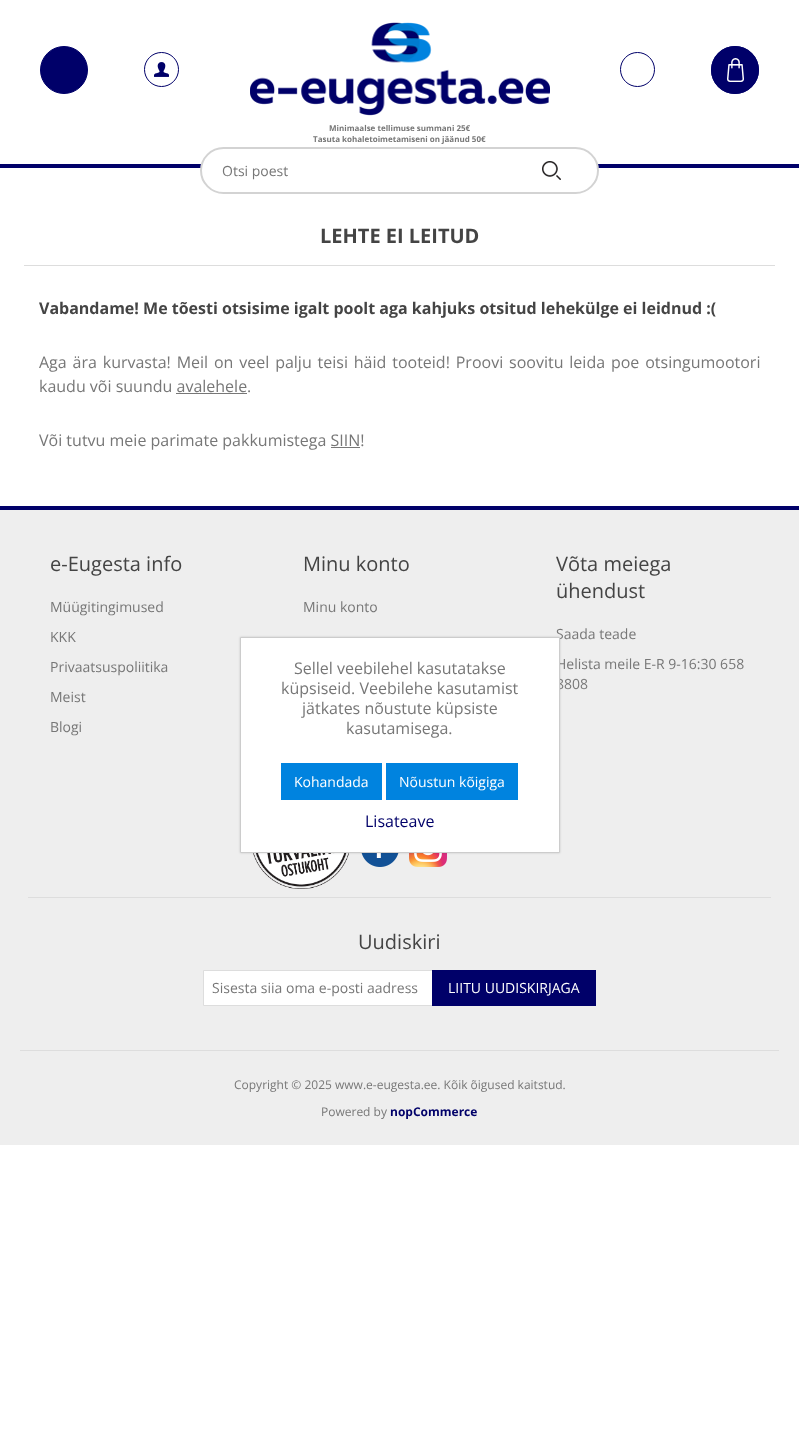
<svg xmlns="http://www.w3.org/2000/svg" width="799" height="1453">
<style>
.a{font:bold 8px Open Sans;fill:#777}
.b{font:14px Open Sans;fill:#777}
.c{font:bold 20px Open Sans;fill:#444}
.d{font:bold 16px Open Sans;fill:#444}
.e{font:16px Open Sans;fill:#777}
.f{font:20px Open Sans;fill:#444}
.g{font:14px Open Sans;fill:#fff}
.h{font:12px Open Sans;fill:#777}
.i{font:bold 12px Open Sans;fill:#000069}
.j{font:16px Open Sans;fill:#000069}
</style>
<rect width="100%" height="100%" fill="#fff"/>
<path fill="#000069" d="M0 164h799v4H0z"/>
<circle fill="#000069" stroke="#000069" cx="64" cy="70" r="23.5"/>
<image href="1.png" x="154" y="62" width="15" height="15"/>
<circle fill="none" stroke="#000069" cx="161.5" cy="69.5" r="17"/>
<circle fill="none" stroke="#000069" cx="637.5" cy="69.5" r="17"/>
<circle fill="#000069" cx="735" cy="70" r="24"/>
<image href="2.png" x="727" y="58" width="17" height="24"/>
<circle fill="none" stroke="#000069" cx="735" cy="70" r="23.5"/>
<image href="3.png" x="250" y="22" width="300" height="94"/>
<rect fill="#fff" stroke="#d3d3d3" stroke-width="2" x="201" y="148" width="397" height="45" rx="22.5"/>
<image href="4.png" x="542" y="161" width="19" height="19"/>
<path fill="#ddd" d="M24 265h751v1H24z"/>
<path fill="#777" d="M176 393h71v1H176z"/>
<path fill="#777" d="M331 447h29v1H331z"/>
<path fill="#eee" d="M0 510h799v635H0z"/>
<path fill="#000069" d="M0 506h799v4H0z"/>
<path fill="#ddd" d="M20 1050h759v1H20z"/>
<path fill="#ddd" d="M28 897h743v1H28z"/>
<image href="5.png" x="253" y="853" width="96" height="36"/>
<image href="6.png" x="361" y="853" width="38" height="14"/>
<image href="7.png" x="409" y="853" width="38" height="14"/>
<path fill="#fff" stroke="#ddd" d="M203.5 970.5h229v35H203.5z"/>
<path fill="#000069" d="M432 970h164v36H432z"/>
<path fill="#00000026" filter="blur(1px)" d="M240 637h320v216H240z"/>
<text class="a" x="329" y="131">Minimaalse tellimuse summani 25€</text>
<text class="a" x="313" y="142">Tasuta kohaletoimetamiseni on jäänud 50€</text>
<text class="b" x="222" y="176">Otsi poest</text>
<text class="c" x="320" y="243">LEHTE EI LEITUD</text>
<text class="d" x="39" y="314">Vabandame! Me tõesti otsisime igalt poolt aga kahjuks otsitud lehekülge ei leidnud :(</text>
<text class="e" x="39" y="368" word-spacing="1.7">Aga ära kurvasta! Meil on veel palju teisi häid tooteid! Proovi soovitu leida poe otsingumootori</text>
<text class="e" x="39" y="392">kaudu või suundu avalehele.</text>
<text class="e" x="39" y="446">Või tutvu meie parimate pakkumistega SIIN!</text>
<text class="f" x="50" y="571">e-Eugesta info</text>
<text class="b" x="50" y="612">Müügitingimused</text>
<text class="b" x="50" y="642">KKK</text>
<text class="b" x="50" y="672">Privaatsuspoliitika</text>
<text class="b" x="50" y="702">Meist</text>
<text class="b" x="50" y="732">Blogi</text>
<text class="f" x="303" y="571">Minu konto</text>
<text class="b" x="303" y="612">Minu konto</text>
<text class="f" x="556" y="571">Võta meiega</text>
<text class="f" x="556" y="598">ühendust</text>
<text class="b" x="556" y="639">Saada teade</text>
<text class="b" x="556" y="669">Helista meile E-R 9-16:30 658</text>
<text class="b" x="556" y="689">8808</text>
<text class="f" x="358" y="949">Uudiskiri</text>
<text class="b" x="212" y="993">Sisesta siia oma e-posti aadress</text>
<text class="g" x="448" y="993">LIITU UUDISKIRJAGA</text>
<text class="h" x="234" y="1089">Copyright © 2025 www.e-eugesta.ee. Kõik õigused kaitstud.</text>
<text class="h" x="321" y="1116">Powered by</text>
<text class="i" x="390" y="1116">nopCommerce</text>
<path fill="#fff" stroke="#ccc" d="M240.5 637.5h319v215H240.5z"/>
<text class="e" x="294" y="674">Sellel veebilehel kasutatakse</text>
<text class="e" x="281" y="694">küpsiseid. Veebilehe kasutamist</text>
<text class="e" x="302" y="714">jätkates nõustute küpsiste</text>
<text class="e" x="346" y="734">kasutamisega.</text>
<path fill="#0083df" d="M281 763h101v37H281z"/>
<text class="g" x="294" y="787">Kohandada</text>
<path fill="#0083df" d="M386 763h132v37H386z"/>
<text class="g" x="399" y="787">Nõustun kõigiga</text>
<text class="j" x="365" y="827">Lisateave</text>
</svg>
